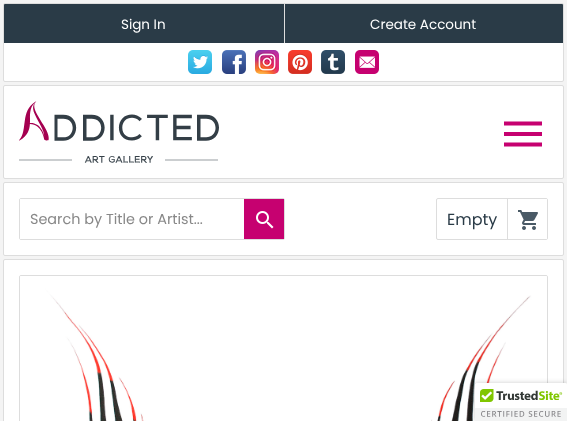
<svg xmlns="http://www.w3.org/2000/svg" width="567" height="421">
<style>
.a{font:13.5px Poppins;fill:#fff}
.b{font:14.4px Poppins;fill:#888}
.c{font:16px Poppins;fill:#2a3b47}
</style>
<rect width="100%" height="100%" fill="#f4f4f4"/>
<rect fill="#fff" stroke="#ddd" x="3.5" y="3.5" width="560" height="78" rx="1.5"/>
<path fill="#2a3b47" d="M5 4h279v39h-280v-38c0-.5 .5-1 1-1z"/>
<path fill="#2a3b47" d="M284 4h278c.5 0 1 .5 1 1v38h-279z"/>
<path fill="#ddd" d="M284 4h1v39H284z"/>
<image href="1.png" x="188" y="50" width="24" height="24"/>
<image href="2.png" x="222" y="50" width="24" height="24"/>
<image href="3.png" x="255" y="50" width="24" height="24"/>
<image href="4.png" x="288" y="50" width="24" height="24"/>
<image href="5.png" x="321" y="50" width="24" height="24"/>
<image href="6.png" x="355" y="50" width="24" height="24"/>
<rect fill="#fff" stroke="#ddd" x="3.5" y="85.5" width="560" height="93" rx="1.5"/>
<image href="7.png" x="19" y="101" width="200" height="62"/>
<path fill="#c60170" d="M504 121.5h38v4h-38zm0 14.5v-4h38v4zm0 10.5v-4h38v4z"/>
<rect fill="#fff" stroke="#ddd" x="3.5" y="182.5" width="560" height="73" rx="1.5"/>
<rect fill="none" stroke="#ddd" x="19.5" y="198.5" width="265" height="41" rx="1.5"/>
<path fill="#fff" d="M20 199h1v40H20z"/>
<path fill="#c60170" d="M244 199h40v40H244z"/>
<image href="8.png" x="256" y="211" width="18" height="18"/>
<rect fill="none" stroke="#ddd" x="436.5" y="198.5" width="111" height="41" rx="1.5"/>
<path fill="#fff" d="M546 199h1v40H546z"/>
<path fill="#ddd" d="M507 199h1v40H507z"/>
<image href="9.png" x="518" y="210" width="20" height="20"/>
<rect fill="#fff" stroke="#ddd" x="3.5" y="259.5" width="560" height="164" rx="1.5"/>
<rect fill="none" stroke="#ddd" x="19.5" y="275.5" width="528" height="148" rx="1.5"/>
<image href="10.png" x="20" y="276" width="527" height="145"/>
<rect fill="#00000033" filter="blur(2.5px)" x="475" y="383" width="92" height="38" rx="2"/>
<path fill="#fff" d="M477 383h90v38h-92v-36c0-1 1-2 2-2z"/>
<image href="11.png" x="475" y="383" width="92" height="38"/>
<text class="a" x="121" y="29">Sign In</text>
<text class="a" x="370" y="29">Create Account</text>
<text class="b" x="30" y="224">Search by Title or Artist...</text>
<text class="c" x="447" y="225">Empty</text>
</svg>
